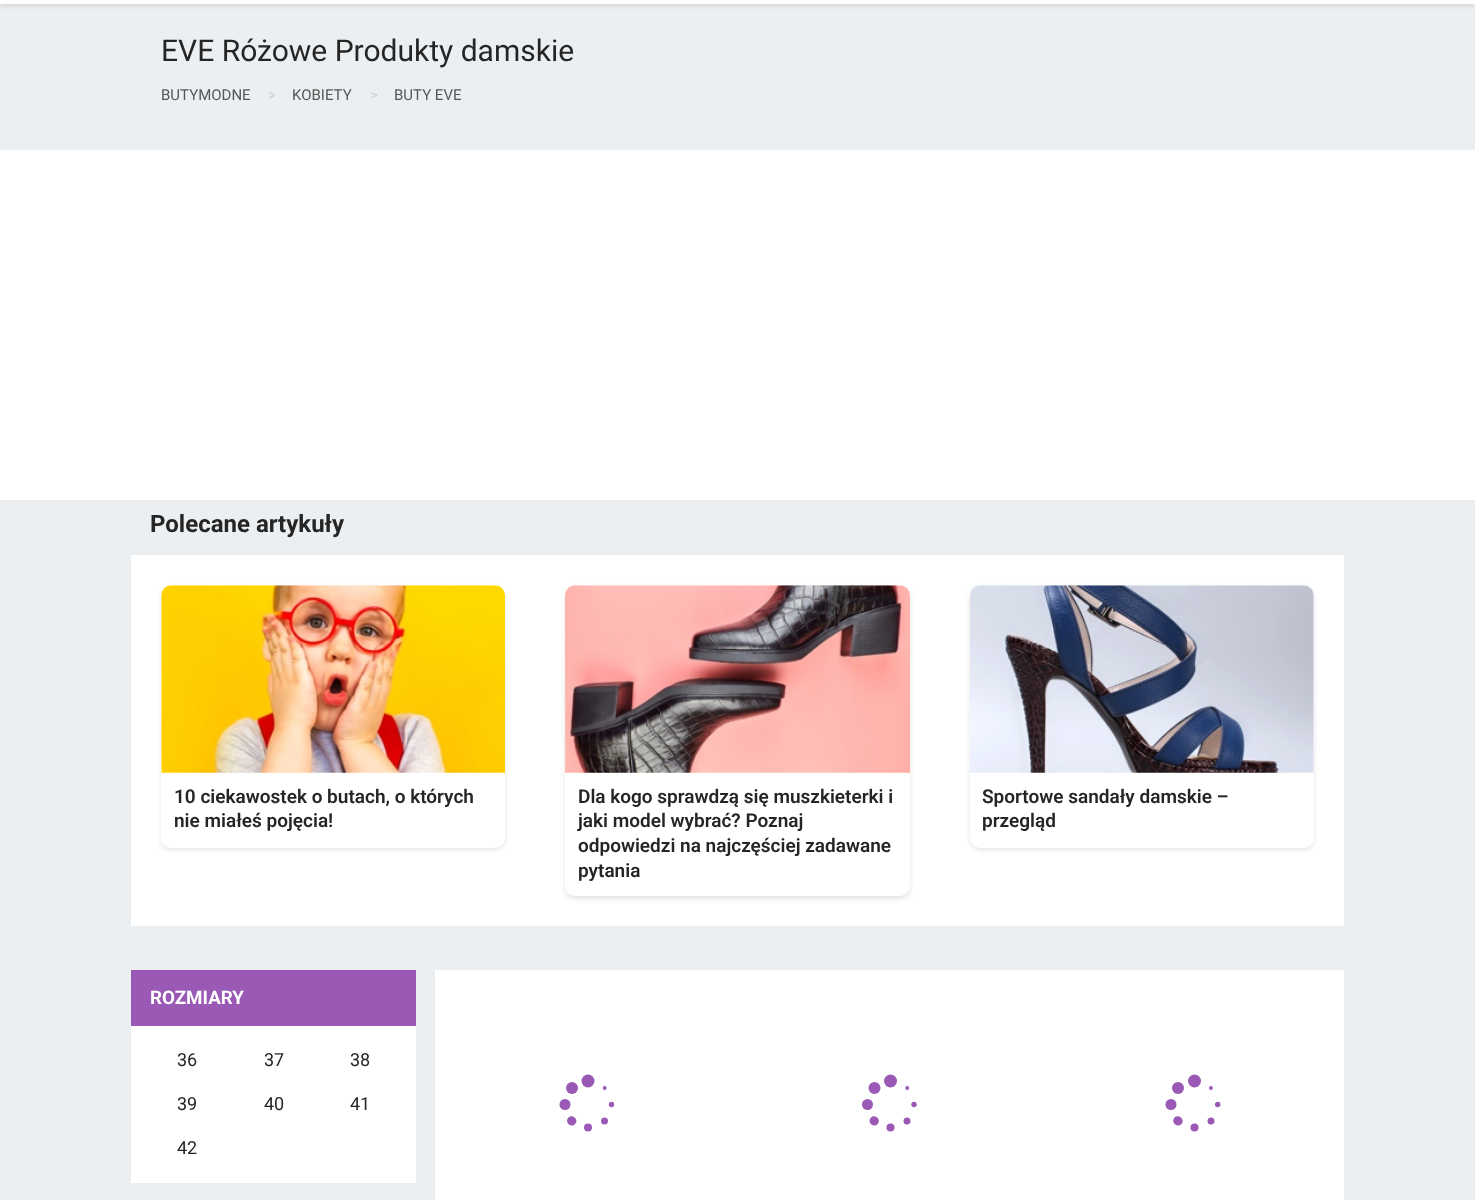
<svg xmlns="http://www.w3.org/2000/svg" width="1475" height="1200">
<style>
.a{font:30px Roboto;fill:#252525}
.b{font:15px Roboto;fill:#565656}
.c{font:15px Roboto;fill:#ccc}
.d{font:bold 24px Roboto;fill:#252525}
.e{font:600 19px Roboto;fill:#252525}
.f{font:bold 18.75px Roboto;fill:#fff}
.g{font:18px Roboto;fill:#252525}
</style>
<rect width="100%" height="100%" fill="#fff"/>
<path fill="#eceff1" d="M0 4h1475v146H0z"/>
<path fill="#0000001a" filter="blur(2.5px)" d="M0 -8h1475v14H0z"/>
<path fill="#fff" d="M0 0h1475v4H0z"/>
<path fill="#eceff1" d="M0 500h1475v700H0z"/>
<path fill="#fff" d="M131 555h1213v371H131z"/>
<rect fill="#0000001a" filter="blur(2.5px)" x="161" y="588" width="344" height="262" rx="10"/>
<rect fill="#fff" x="161" y="585" width="344" height="263" rx="10"/>
<image href="1.png" x="161" y="585" width="344" height="188"/>
<rect fill="#0000001a" filter="blur(2.5px)" x="565" y="588" width="345" height="311" rx="10"/>
<rect fill="#fff" x="565" y="585" width="345" height="311" rx="10"/>
<image href="2.png" x="565" y="585" width="345" height="188"/>
<rect fill="#0000001a" filter="blur(2.5px)" x="970" y="588" width="344" height="262" rx="10"/>
<rect fill="#fff" x="970" y="585" width="344" height="263" rx="10"/>
<image href="3.png" x="970" y="585" width="344" height="188"/>
<path fill="#fff" d="M131 1026h285v157H131z"/>
<path fill="#9b59b6" d="M131 970h285v56H131z"/>
<path fill="#fff" d="M435 970h909v230H435z"/>
<circle fill="#9b59b6" cx="572" cy="1088" r="6"/>
<circle fill="#9b59b6" cx="588" cy="1081" r="6.5"/>
<circle fill="#9b59b6" cx="604.7" cy="1088" r="2"/>
<circle fill="#9b59b6" cx="565" cy="1104.5" r="5.5"/>
<circle fill="#9b59b6" cx="611.5" cy="1104.5" r="2.7"/>
<path fill="#9b59b6" d="M568.5 1117.5c-4.5 4.5 2.5 11 6.5 6.5c4.5-4-2.5-10.5-6.5-6.5z"/>
<circle fill="#9b59b6" cx="604.5" cy="1121" r="3.5"/>
<circle fill="#9b59b6" cx="588" cy="1127.5" r="4"/>
<circle fill="#9b59b6" cx="874.5" cy="1088" r="6"/>
<circle fill="#9b59b6" cx="890.5" cy="1081" r="6.5"/>
<circle fill="#9b59b6" cx="907.2" cy="1088" r="2"/>
<circle fill="#9b59b6" cx="867.5" cy="1104.5" r="5.5"/>
<circle fill="#9b59b6" cx="914" cy="1104.5" r="2.7"/>
<path fill="#9b59b6" d="M871 1117.5c-4.5 4.5 2.5 11 6.5 6.5c4.5-4-2.5-10.5-6.5-6.5z"/>
<circle fill="#9b59b6" cx="907" cy="1121" r="3.5"/>
<circle fill="#9b59b6" cx="890.5" cy="1127.5" r="4"/>
<circle fill="#9b59b6" cx="1178" cy="1088" r="6"/>
<circle fill="#9b59b6" cx="1194.5" cy="1081" r="6.5"/>
<circle fill="#9b59b6" cx="1210.9" cy="1088" r="2"/>
<circle fill="#9b59b6" cx="1171" cy="1104.5" r="5.5"/>
<circle fill="#9b59b6" cx="1217.7" cy="1104.5" r="2.7"/>
<path fill="#9b59b6" d="M1174.5 1117.5c-4 4.5 2.5 11 7 6.5c4-4-2.5-10.5-7-6.5z"/>
<circle fill="#9b59b6" cx="1211" cy="1121" r="3.5"/>
<circle fill="#9b59b6" cx="1194.5" cy="1127.5" r="4"/>
<text class="a" x="161" y="61">EVE Różowe Produkty damskie</text>
<text class="b" x="161" y="100">BUTYMODNE</text>
<text class="c" x="268" y="100">&gt;</text>
<text class="b" x="292" y="100">KOBIETY</text>
<text class="c" x="370" y="100">&gt;</text>
<text class="b" x="394" y="100">BUTY EVE</text>
<text class="d" x="150" y="532">Polecane artykuły</text>
<text class="e" x="174" y="803">10 ciekawostek o butach, o których</text>
<text class="e" x="174" y="827">nie miałeś pojęcia!</text>
<text class="e" x="578" y="803">Dla kogo sprawdzą się muszkieterki i</text>
<text class="e" x="578" y="827">jaki model wybrać? Poznaj</text>
<text class="e" x="578" y="852">odpowiedzi na najczęściej zadawane</text>
<text class="e" x="578" y="877">pytania</text>
<text class="e" x="982" y="803">Sportowe sandały damskie –</text>
<text class="e" x="982" y="827">przegląd</text>
<text class="f" x="150" y="1004">ROZMIARY</text>
<text class="g" x="177" y="1066">36</text>
<text class="g" x="264" y="1066">37</text>
<text class="g" x="350" y="1066">38</text>
<text class="g" x="177" y="1110">39</text>
<text class="g" x="264" y="1110">40</text>
<text class="g" x="350" y="1110">41</text>
<text class="g" x="177" y="1154">42</text>
</svg>
